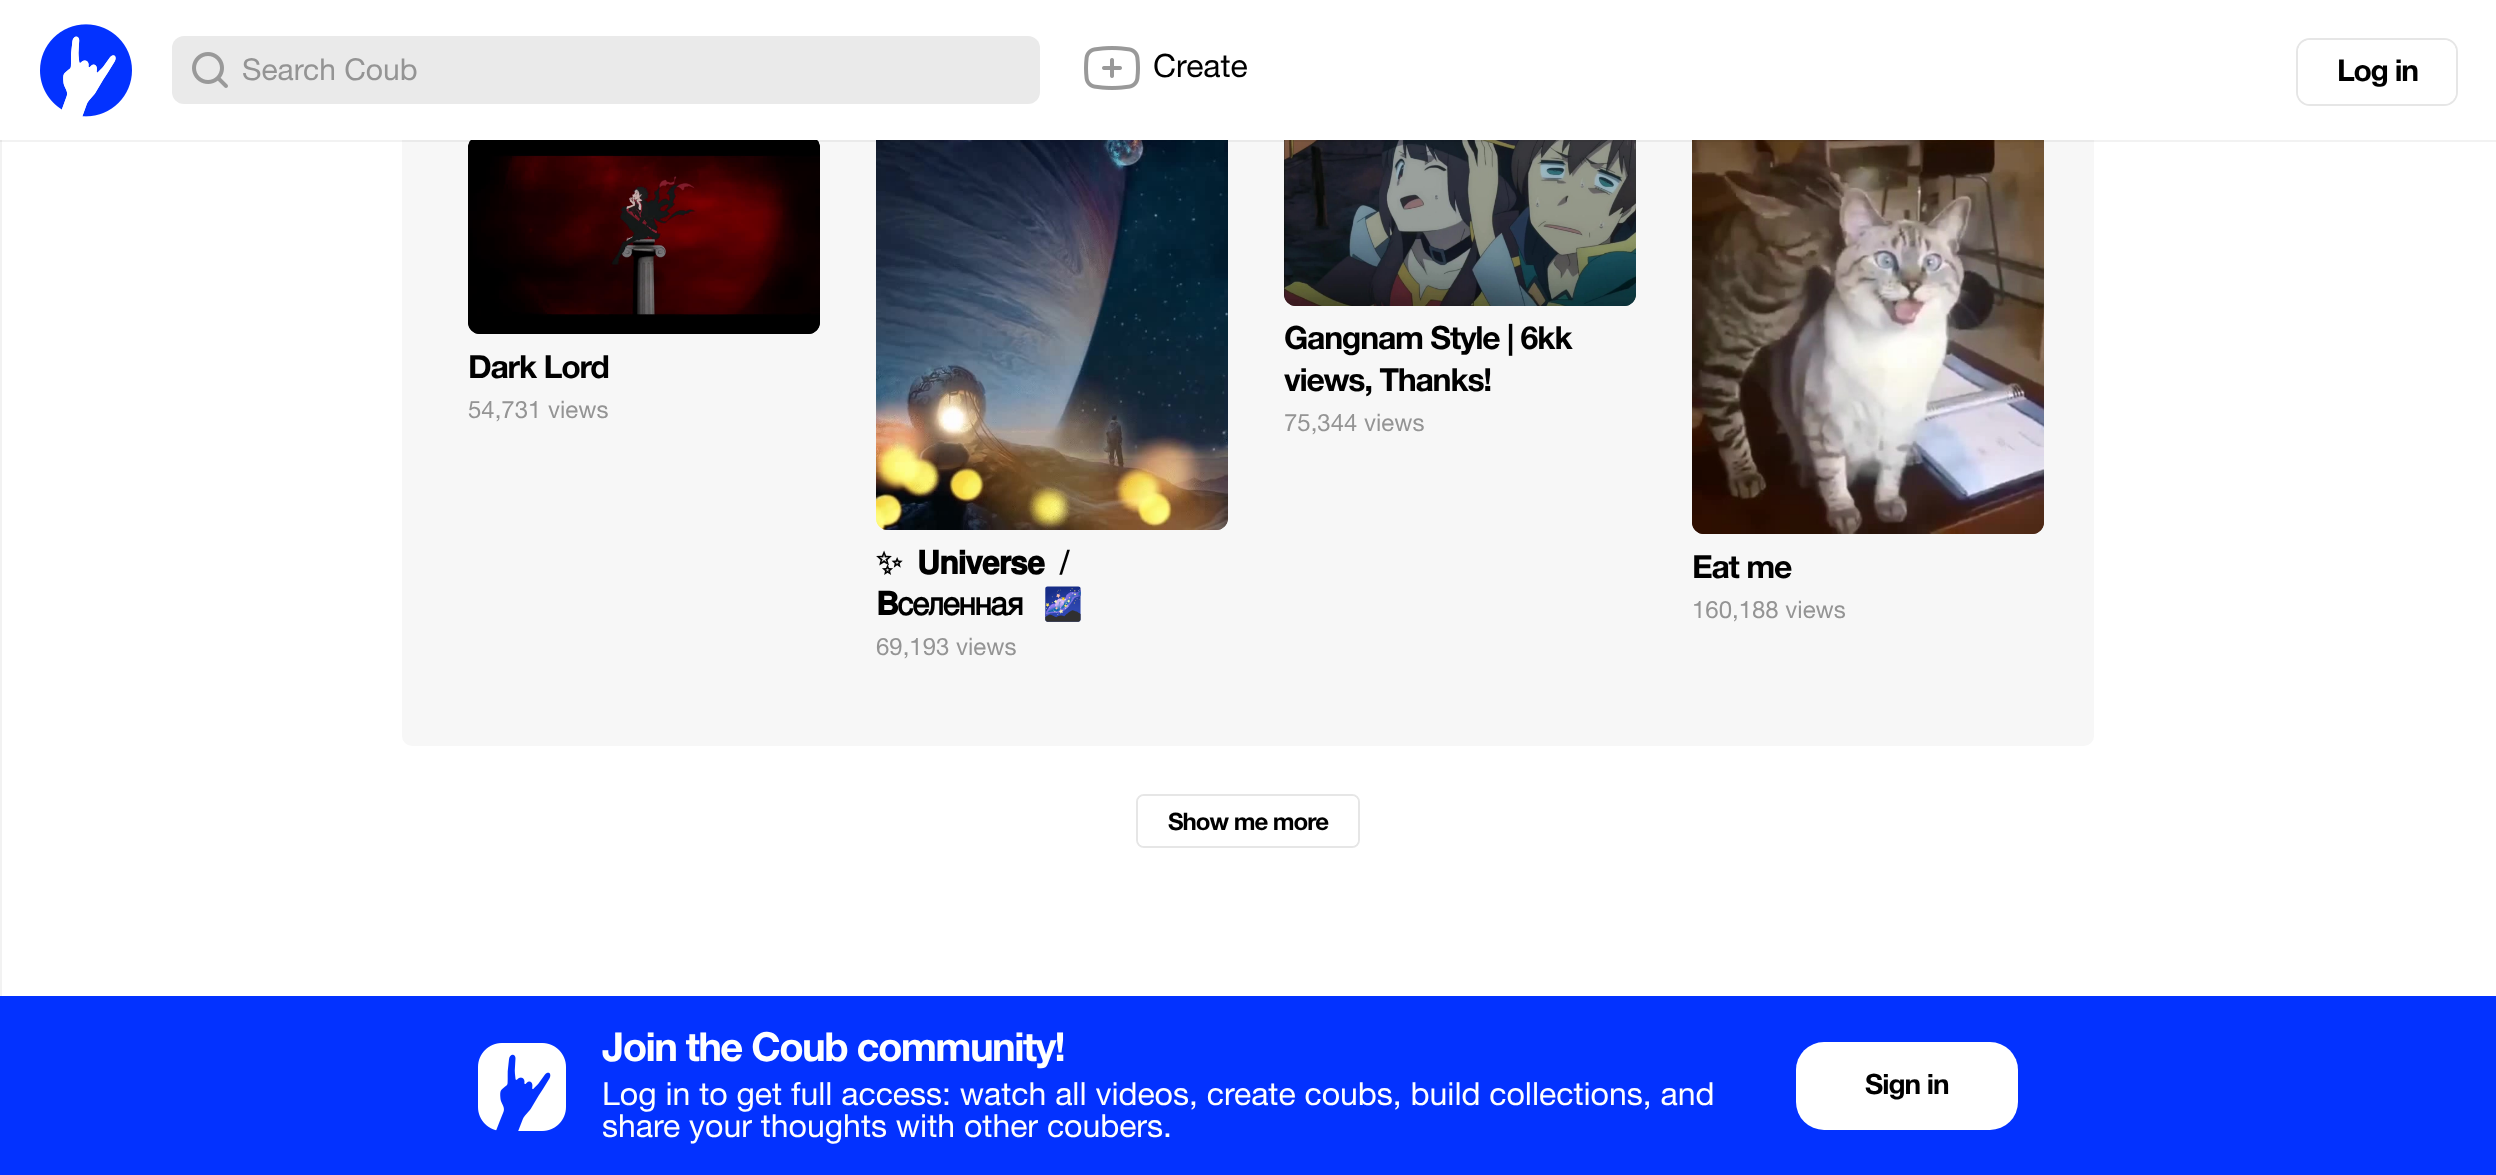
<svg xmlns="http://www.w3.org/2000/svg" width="2496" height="1175">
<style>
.a{font:30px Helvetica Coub;fill:#949494}
.b{font:32px Helvetica Coub;fill:#000}
.c{font:bold 30px Helvetica Coub;letter-spacing:-1.25px;fill:#000}
.d{font:bold 32px Helvetica Coub;letter-spacing:-1.25px;fill:#000}
.e{font:24px Helvetica Coub;fill:#949494}
.f{font:bold 32px FreeSans;letter-spacing:-1.25px;fill:#000}
.g{font:bold 32px Noto Color Emoji;letter-spacing:-1.25px;fill:#000}
.h{font:bold 24px Helvetica Coub;letter-spacing:-1px;fill:#000}
.i{font:bold 40px Helvetica Coub;letter-spacing:-1.6px;fill:#fff}
.j{font:32px Helvetica Coub;fill:#fff}
.k{font:bold 28px Helvetica Coub;letter-spacing:-1px;fill:#000}
</style>
<rect width="100%" height="100%" fill="#fff"/>
<path fill="none" stroke="#f2f2f2" stroke-width="2" d="M-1 -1h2v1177H-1z"/>
<rect fill="#f7f7f7" x="402" y="-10" width="1692" height="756" rx="10"/>
<image href="4.png" x="468" y="140" width="352" height="194"/>
<image href="5.png" x="468" y="140" width="352" height="194"/>
<image href="7.png" x="1284" y="294" width="352" height="12"/>
<image href="6.png" x="1284" y="140" width="352" height="166"/>
<image href="9.png" x="876" y="518" width="352" height="12"/>
<image href="8.png" x="876" y="140" width="352" height="390"/>
<image href="11.png" x="1692" y="522" width="352" height="12"/>
<image href="10.png" x="1692" y="140" width="352" height="394"/>
<path fill="#0000000d" d="M0 140h2496v2H0z"/>
<path fill="#fff" d="M0 0h2094v140H0z"/>
<image href="1.png" x="40" y="24" width="92" height="93"/>
<rect fill="#eaeaea" x="172" y="36" width="868" height="68" rx="12"/>
<image href="2.png" x="192" y="52" width="36" height="36"/>
<image href="3.png" x="1084" y="46" width="56" height="44"/>
<rect fill="none" stroke="#e6e6e6" stroke-width="2" x="2297" y="39" width="160" height="66" rx="13"/>
<rect fill="#fff" x="2298" y="40" width="158" height="64" rx="12"/>
<rect fill="none" stroke="#e6e6e6" stroke-width="2" x="1137" y="795" width="222" height="52" rx="7"/>
<rect fill="#fff" x="1138" y="796" width="220" height="50" rx="6"/>
<path fill="#0332ff" d="M0 996h2496v179H0z"/>
<image href="12.png" x="478" y="1043" width="88" height="88"/>
<rect fill="#fff" x="1796" y="1042" width="222" height="88" rx="28"/>
<text class="a" x="242" y="80">Search Coub</text>
<text class="b" x="1153" y="77">Create</text>
<text class="c" x="2337" y="81">Log in</text>
<text class="d" x="468" y="378">Dark Lord</text>
<text class="e" x="468" y="418">54,731 views</text>
<text class="d" x="1284" y="349">Gangnam Style | 6kk</text>
<text class="d" x="1284" y="391">views, Thanks!</text>
<text class="e" x="1284" y="431">75,344 views</text>
<text class="f" x="876" y="574" word-spacing="9">✨ 𝐔𝐧𝐢𝐯𝐞𝐫𝐬𝐞 /</text>
<text class="f" x="876" y="615">𝐁селенная</text>
<text class="g" x="1043" y="615">🌌</text>
<text class="e" x="876" y="655">69,193 views</text>
<text class="d" x="1692" y="578">Eat me</text>
<text class="e" x="1692" y="618">160,188 views</text>
<text class="h" x="1168" y="830">Show me more</text>
<text class="i" x="602" y="1061">Join the Coub community!</text>
<text class="j" x="602" y="1105">Log in to get full access: watch all videos, create coubs, build collections, and</text>
<text class="j" x="602" y="1137">share your thoughts with other coubers.</text>
<text class="k" x="1865" y="1094">Sign in</text>
</svg>
